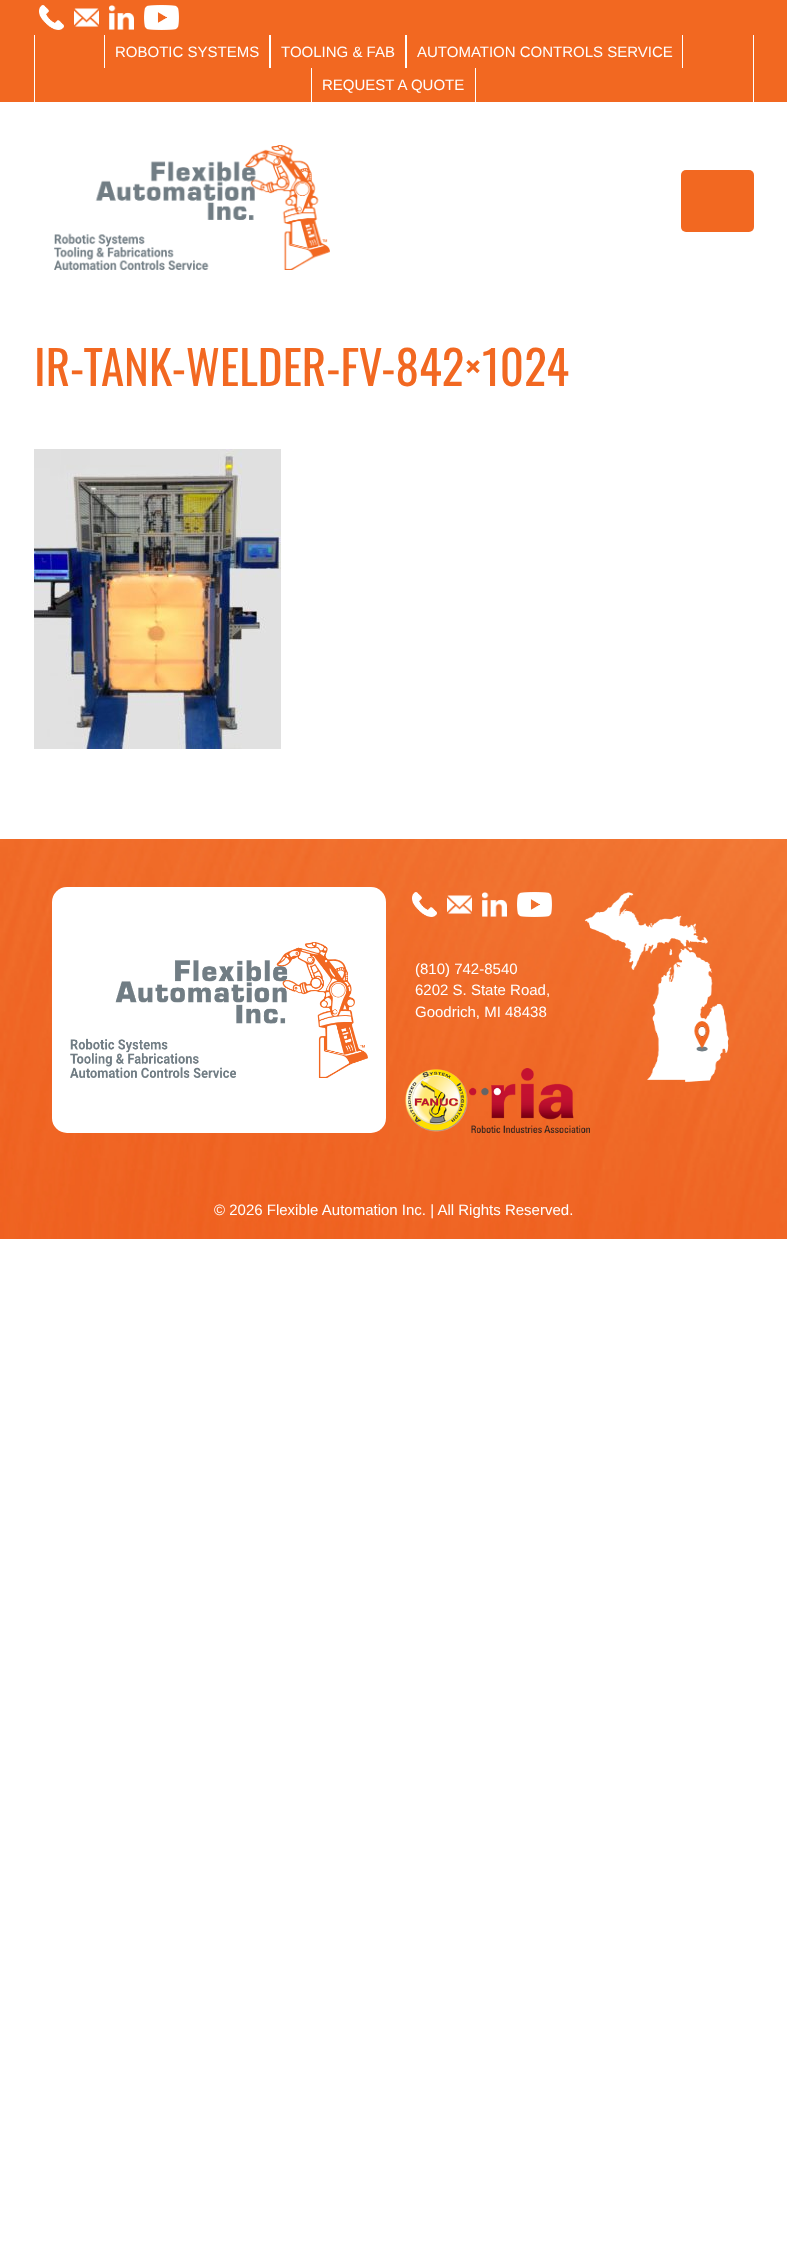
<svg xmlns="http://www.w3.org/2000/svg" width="787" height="2250">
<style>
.a{font:15px Liberation Sans;fill:#fff}
.b{font:47px Oswald;fill:#f26821}
</style>
<rect width="100%" height="100%" fill="#fff"/>
<path fill="#f26821" d="M0 0h787v102H0z"/>
<image href="1.png" x="39" y="5" width="25" height="25"/>
<image href="2.png" x="74" y="8" width="25" height="19"/>
<image href="3.png" x="109" y="5" width="25" height="25"/>
<image href="4.png" x="144" y="5" width="35" height="25"/>
<path fill="#fff" d="M753 35h1v67H753z"/>
<path fill="#fff" d="M34 35h1v67H34z"/>
<path fill="#fff" d="M269 35h2v33H269z"/>
<path fill="#fff" d="M104 35h1v33H104z"/>
<path fill="#fff" d="M405 35h2v33H405z"/>
<path fill="#fff" d="M682 35h1v33H682z"/>
<path fill="#fff" d="M475 68h1v34H475z"/>
<path fill="#fff" d="M311 68h1v34H311z"/>
<image href="5.png" x="54" y="145" width="276" height="125"/>
<rect fill="#f26821" x="681" y="170" width="73" height="62" rx="5"/>
<image href="6.png" x="34" y="449" width="247" height="300"/>
<image href="7.png" x="0" y="839" width="787" height="400"/>
<rect fill="#fff" x="52" y="887" width="334" height="246" rx="15"/>
<image href="8.png" x="70" y="942" width="298" height="136"/>
<image href="9.png" x="412" y="892" width="25" height="25"/>
<image href="10.png" x="447" y="895" width="25" height="19"/>
<image href="11.png" x="482" y="892" width="25" height="25"/>
<image href="12.png" x="517" y="892" width="35" height="25"/>
<image href="13.png" x="405" y="1069" width="63" height="63"/>
<image href="14.png" x="469" y="1068" width="121" height="65"/>
<image href="15.png" x="584" y="892" width="145" height="191"/>
<text class="a" x="115" y="57">ROBOTIC SYSTEMS</text>
<text class="a" x="281" y="57">TOOLING &amp; FAB</text>
<text class="a" x="417" y="57">AUTOMATION CONTROLS SERVICE</text>
<text class="a" x="322" y="90">REQUEST A QUOTE</text>
<text class="b" x="34" y="386">IR-TANK-WELDER-FV-842×1024</text>
<text class="a" x="415" y="974">(810) 742-8540</text>
<text class="a" x="415" y="995">6202 S. State Road,</text>
<text class="a" x="415" y="1017">Goodrich, MI 48438</text>
<text class="a" x="214" y="1215">© 2026 Flexible Automation Inc. | All Rights Reserved.</text>
</svg>
